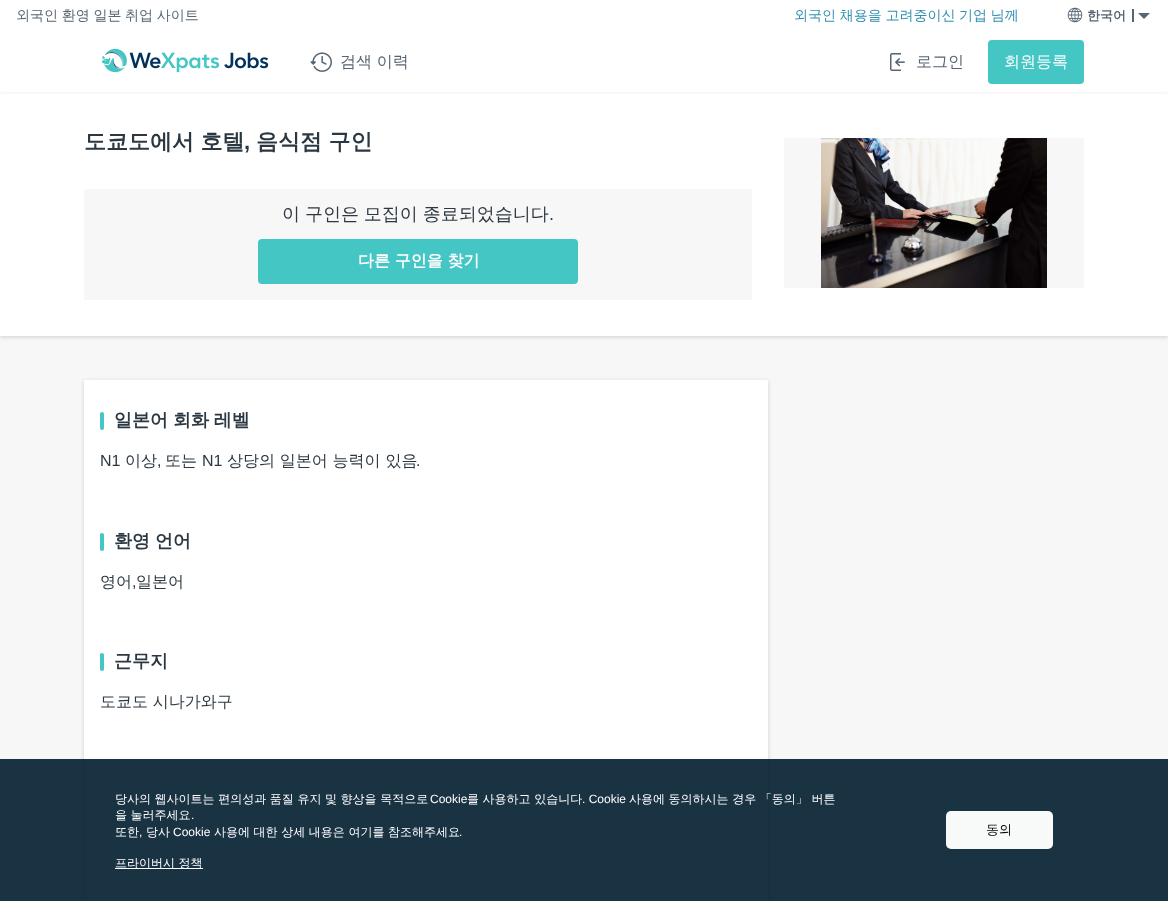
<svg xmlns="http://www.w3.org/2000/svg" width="1168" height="901">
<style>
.a{font:500 14px WenQuanYi Zen Hei;fill:#576573}
.b{font:500 14px WenQuanYi Zen Hei;fill:#318fb0}
.c{font:bold 13px WenQuanYi Zen Hei;fill:#576573}
.d{font:500 16px WenQuanYi Zen Hei;fill:#576573}
.e{font:500 16px WenQuanYi Zen Hei;fill:#fff}
.f{font:bold 22px WenQuanYi Zen Hei;fill:#2c3841}
.g{font:bold 22px Liberation Sans;fill:#2c3841}
.h{font:500 18px WenQuanYi Zen Hei;fill:#2c3841}
.i{font:18px Liberation Sans;fill:#2c3841}
.j{font:bold 16px WenQuanYi Zen Hei;fill:#fff}
.k{font:bold 18px WenQuanYi Zen Hei;fill:#2c3841}
.l{font:16px Liberation Sans;fill:#2c3841}
.m{font:500 16px WenQuanYi Zen Hei;fill:#2c3841}
.n{font:500 12px WenQuanYi Zen Hei;fill:#fff}
.o{font:12px Liberation Sans;fill:#fff}
.p{font:500 13px WenQuanYi Zen Hei;fill:#000}
</style>
<rect width="100%" height="100%" fill="#fff"/>
<image href="1.png" x="1067" y="7" width="16" height="16"/>
<path fill="#576573" d="M1132 9h2v13H1132z"/>
<path fill="#576573" d="M1138 13h12l-6 6z"/>
<image href="2.png" x="101" y="48" width="168" height="25"/>
<image href="3.png" x="310" y="52" width="22" height="20"/>
<image href="4.png" x="890" y="53" width="15" height="18"/>
<rect fill="#44c6c5" x="988" y="40" width="96" height="44" rx="4"/>
<path fill="#f7f7f7" d="M0 336h1168v565H0z"/>
<path fill="#00000029" filter="blur(2px)" d="M0 95h1168v242H0z"/>
<path fill="#fff" d="M0 94h1168v242H0z"/>
<path fill="#f7f7f7" d="M84 189h668v111H84z"/>
<rect fill="#44c6c5" x="258" y="239" width="320" height="45" rx="4"/>
<path fill="#f7f7f7" d="M784 138h300v150H784z"/>
<image href="5.png" x="821" y="138" width="226" height="150"/>
<path fill="#00000029" filter="blur(2px)" d="M84 381h684v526H84z"/>
<path fill="#fff" d="M84 380h684v521H84z"/>
<rect fill="#44c6c5" x="100" y="412" width="4" height="18" rx="2"/>
<rect fill="#44c6c5" x="100" y="533" width="4" height="18" rx="2"/>
<rect fill="#44c6c5" x="100" y="653" width="4" height="18" rx="2"/>
<path fill="#072233eb" d="M0 759h1168v142H0z"/>
<path fill="#fff" d="M115 868h88v1H115z"/>
<rect fill="#f8f9f9" x="946" y="811" width="107" height="38" rx="5"/>
<text class="a" x="16" y="20" word-spacing="-0.5">외국인 환영 일본 취업 사이트</text>
<text class="b" x="794" y="20" word-spacing="-0.5">외국인 채용을 고려중이신 기업 님께</text>
<text class="c" x="1087" y="20">한국어</text>
<text class="d" x="340" y="67">검색 이력</text>
<text class="d" x="916" y="67">로그인</text>
<text class="e" x="1004" y="67">회원등록</text>
<text class="f" x="84" y="149">도쿄도에서 호텔</text>
<text class="g" x="244" y="149">,</text>
<text class="f" x="256" y="149">음식점 구인</text>
<text class="h" x="282" y="220" word-spacing="-0.5">이 구인은 모집이 종료되었습니다</text>
<text class="i" x="549" y="220">.</text>
<text class="j" x="358" y="266">다른 구인을 찾기</text>
<text class="k" x="114" y="426" word-spacing="-0.5">일본어 회화 레벨</text>
<text class="l" x="100" y="466">N1</text>
<text class="m" x="125" y="466">이상</text>
<text class="m" x="165" y="466">또는</text>
<text class="l" x="202" y="466">N1</text>
<text class="m" x="227" y="466">상당의 일본어 능력이 있음</text>
<text class="l" x="157" y="466">,</text>
<text class="l" x="416" y="466">.</text>
<text class="k" x="114" y="547" word-spacing="-0.5">환영 언어</text>
<text class="m" x="100" y="587">영어</text>
<text class="l" x="132" y="587">,</text>
<text class="m" x="136" y="587">일본어</text>
<text class="k" x="114" y="667">근무지</text>
<text class="m" x="100" y="707">도쿄도 시나가와구</text>
<text class="n" x="115" y="803">당사의 웹사이트는 편의성과 품질 유지 및 향상을 목적으로</text>
<text class="o" x="430" y="803">Cookie</text>
<text class="n" x="467" y="803">를 사용하고 있습니다</text>
<text class="o" x="582" y="803">. Cookie</text>
<text class="n" x="629" y="803">사용에 동의하시는 경우 「동의」 버튼</text>
<text class="n" x="115" y="819">을 눌러주세요</text>
<text class="o" x="191" y="819">.</text>
<text class="n" x="115" y="836">또한</text>
<text class="o" x="139" y="836">,</text>
<text class="n" x="146" y="836">당사</text>
<text class="o" x="173" y="836">Cookie</text>
<text class="n" x="214" y="836">사용에 대한 상세 내용은 여기를 참조해주세요</text>
<text class="o" x="459" y="836">.</text>
<text class="n" x="115" y="867">프라이버시 정책</text>
<text class="p" x="986" y="834">동의</text>
</svg>
